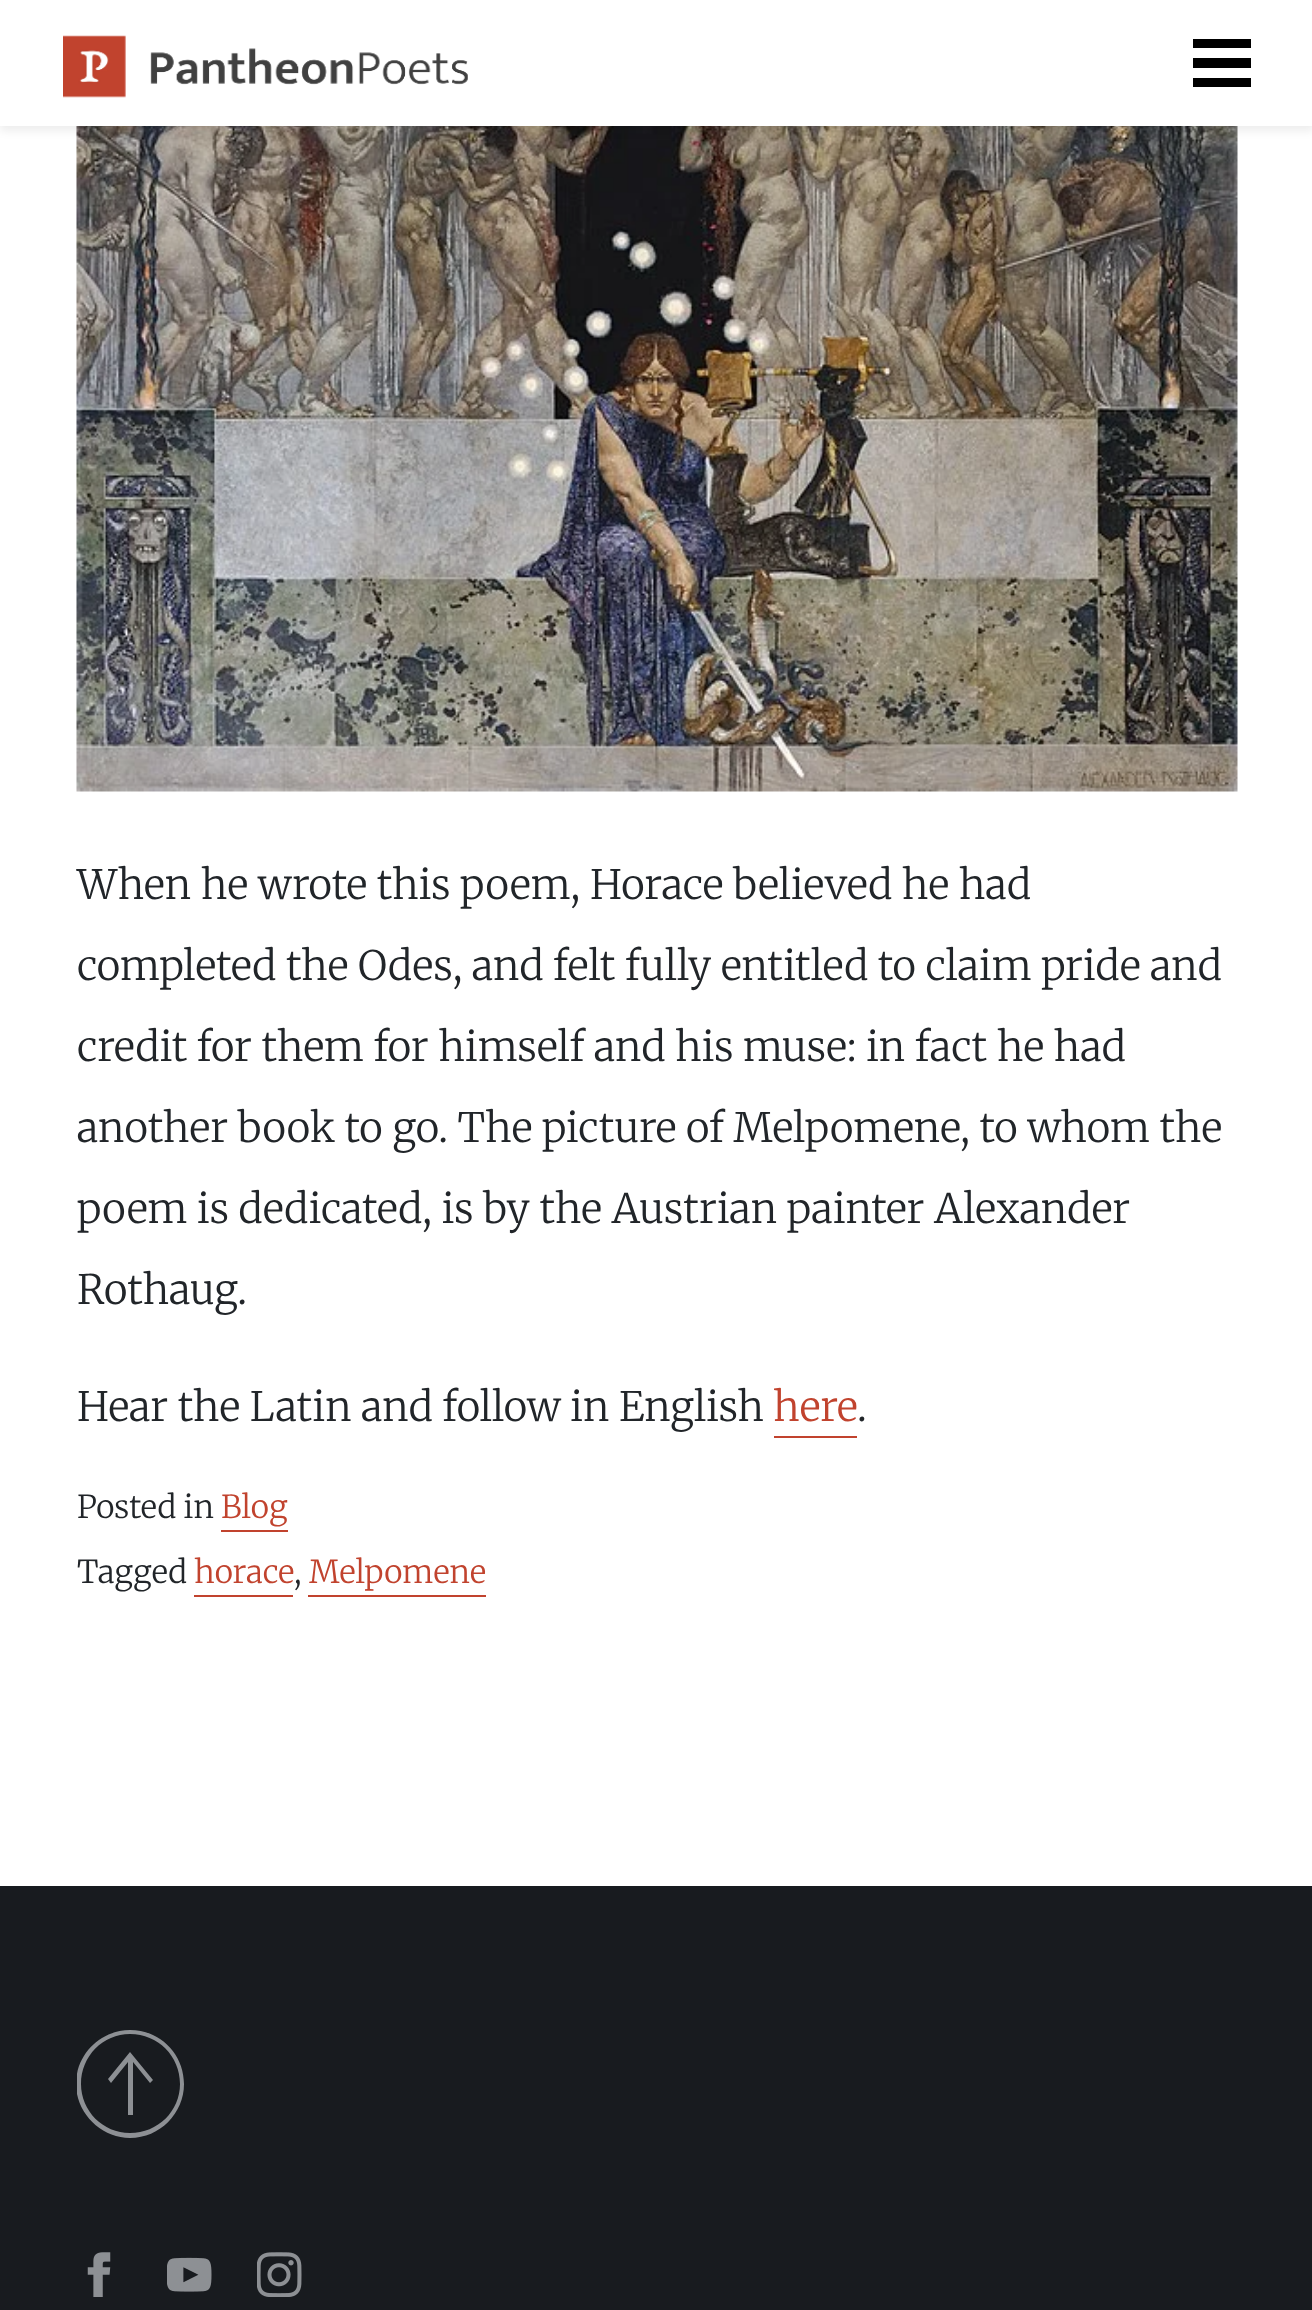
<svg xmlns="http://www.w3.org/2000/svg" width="1312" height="2310">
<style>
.a{font:300 40.5px Merriweather;fill:#212529}
.b{font:300 40.5px Merriweather;fill:#c1432e}
.c{font:300 31.5px Merriweather;fill:#212529}
.d{font:300 31.5px Merriweather;fill:#c1432e}
</style>
<defs>
<clipPath id="clip1"><path d="M1193 34h58v58H1193z"/></clipPath>
<clipPath id="clip2"><path d="M77 2030h108v108H77z"/></clipPath>
</defs>
<rect width="100%" height="100%" fill="#fff"/>
<image href="2.png" x="76" y="126" width="1162" height="666"/>
<path fill="#00000012" filter="blur(4.5px)" d="M0 5h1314v126H0z"/>
<path fill="#fff" d="M0 0h1312v126H0z"/>
<image href="1.png" x="63" y="35" width="405" height="63"/>
<g clip-path="url(#clip1)">
<path fill="#000" d="M1251 48h-59v-9h59zm0 10h-59v10h59zm0 20h-59v9h59z"/>
</g>
<path fill="#c1432e" d="M774 1436h83v2H774z"/>
<path fill="#c1432e" d="M221 1530h67v2H221z"/>
<path fill="#c1432e" d="M194 1595h99v2H194z"/>
<path fill="#c1432e" d="M308 1595h178v2H308z"/>
<path fill="#181b1f" d="M0 1886h1312v424H0z"/>
<g clip-path="url(#clip2)">
<path fill="#8d9094" fill-rule="evenodd" d="M184 2084c0 29-24 54-54 54c-29 0-54-25-54-54c0-30 25-54 54-54c30 0 54 24 54 54zm-4 0c0 27-22 49-50 49c-27 0-49-22-49-49c0-28 22-50 49-50c28 0 50 22 50 50zm-52-22l-17 21l-3-4l22-27l23 28l-3 3l-17-21v53h-5z"/>
</g>
<image href="3.png" x="87" y="2252" width="24" height="45"/>
<image href="4.png" x="167" y="2257" width="45" height="35"/>
<image href="5.png" x="257" y="2252" width="45" height="45"/>
<text class="a" x="77" y="899">When he wrote this poem, Horace believed he had</text>
<text class="a" x="77" y="980">completed the Odes, and felt fully entitled to claim pride and</text>
<text class="a" x="77" y="1061">credit for them for himself and his muse: in fact he had</text>
<text class="a" x="77" y="1142">another book to go. The picture of Melpomene, to whom the</text>
<text class="a" x="77" y="1223">poem is dedicated, is by the Austrian painter Alexander</text>
<text class="a" x="77" y="1304">Rothaug.</text>
<text class="a" x="77" y="1421">Hear the Latin and follow in English</text>
<text class="b" x="773" y="1421">here</text>
<text class="a" x="857" y="1421">.</text>
<text class="c" x="77" y="1518">Posted in</text>
<text class="d" x="221" y="1518">Blog</text>
<text class="c" x="77" y="1583">Tagged</text>
<text class="d" x="194" y="1583">horace</text>
<text class="c" x="294" y="1583">,</text>
<text class="d" x="309" y="1583">Melpomene</text>
</svg>
